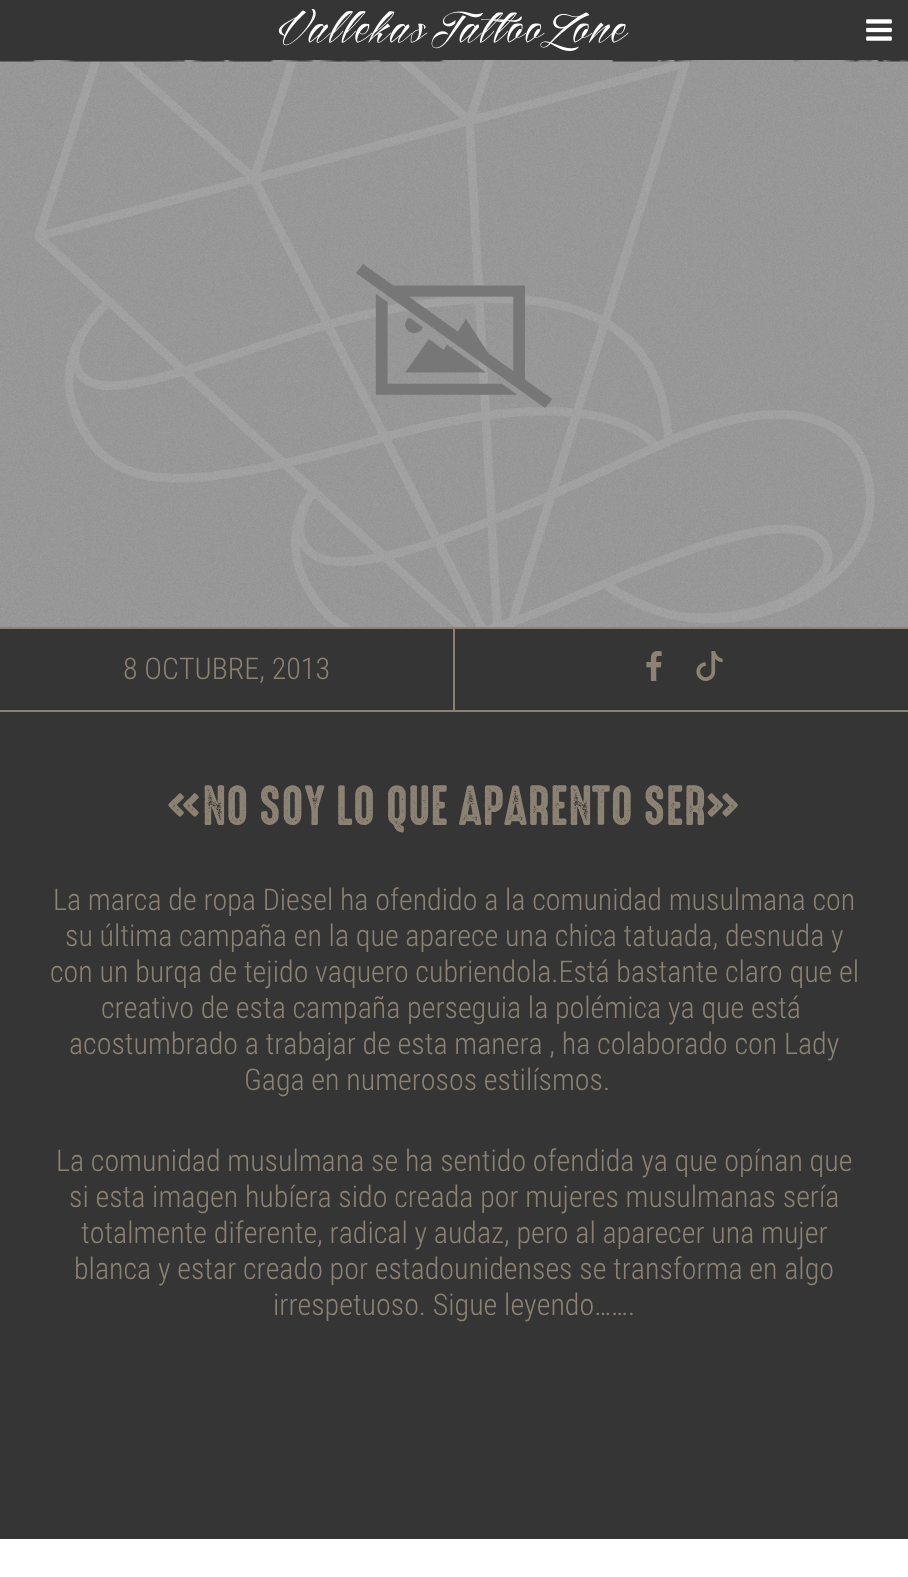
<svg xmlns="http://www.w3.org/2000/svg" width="908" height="1577">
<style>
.a{font:300 30px Roboto Condensed;fill:#8c8273}
.b{font:51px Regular;fill:#8c8273}
</style>
<rect width="100%" height="100%" fill="#353535"/>
<image href="1.png" x="278" y="9" width="351" height="42"/>
<image href="2.png" x="866" y="19" width="26" height="22"/>
<image href="4.png" x="0" y="60" width="908" height="567"/>
<image href="3.png" x="0" y="60" width="908" height="2"/>
<path fill="#8c8273" d="M0 627h908v2H0z"/>
<path fill="#8c8273" d="M453 627h2v84H453z"/>
<path fill="#8c8273" d="M0 710h908v2H0z"/>
<image href="5.png" x="646" y="651" width="16" height="30"/>
<image href="6.png" x="696" y="651" width="27" height="30"/>
<path fill="#fff" d="M0 1539h908v38H0z"/>
<text class="a" x="123" y="679">8 OCTUBRE, 2013</text>
<text class="b" x="167" y="825">«NO SOY LO QUE APARENTO SER»</text>
<text class="a" x="53" y="910">La marca de ropa Diesel ha ofendido a la comunidad musulmana con</text>
<text class="a" x="65" y="946">su última campaña en la que aparece una chica tatuada, desnuda y</text>
<text class="a" x="50" y="982">con un burqa de tejido vaquero cubriendola.Está bastante claro que el</text>
<text class="a" x="101" y="1018">creativo de esta campaña perseguia la polémica ya que está</text>
<text class="a" x="69" y="1054">acostumbrado a trabajar de esta manera , ha colaborado con Lady</text>
<text class="a" x="244" y="1090">Gaga en numerosos estilísmos.</text>
<text class="a" x="56" y="1171">La comunidad musulmana se ha sentido ofendida ya que opínan que</text>
<text class="a" x="69" y="1207">si esta imagen hubíera sido creada por mujeres musulmanas sería</text>
<text class="a" x="81" y="1243">totalmente diferente, radical y audaz, pero al aparecer una mujer</text>
<text class="a" x="74" y="1279">blanca y estar creado por estadounidenses se transforma en algo</text>
<text class="a" x="273" y="1315">irrespetuoso. Sigue leyendo…….</text>
</svg>
